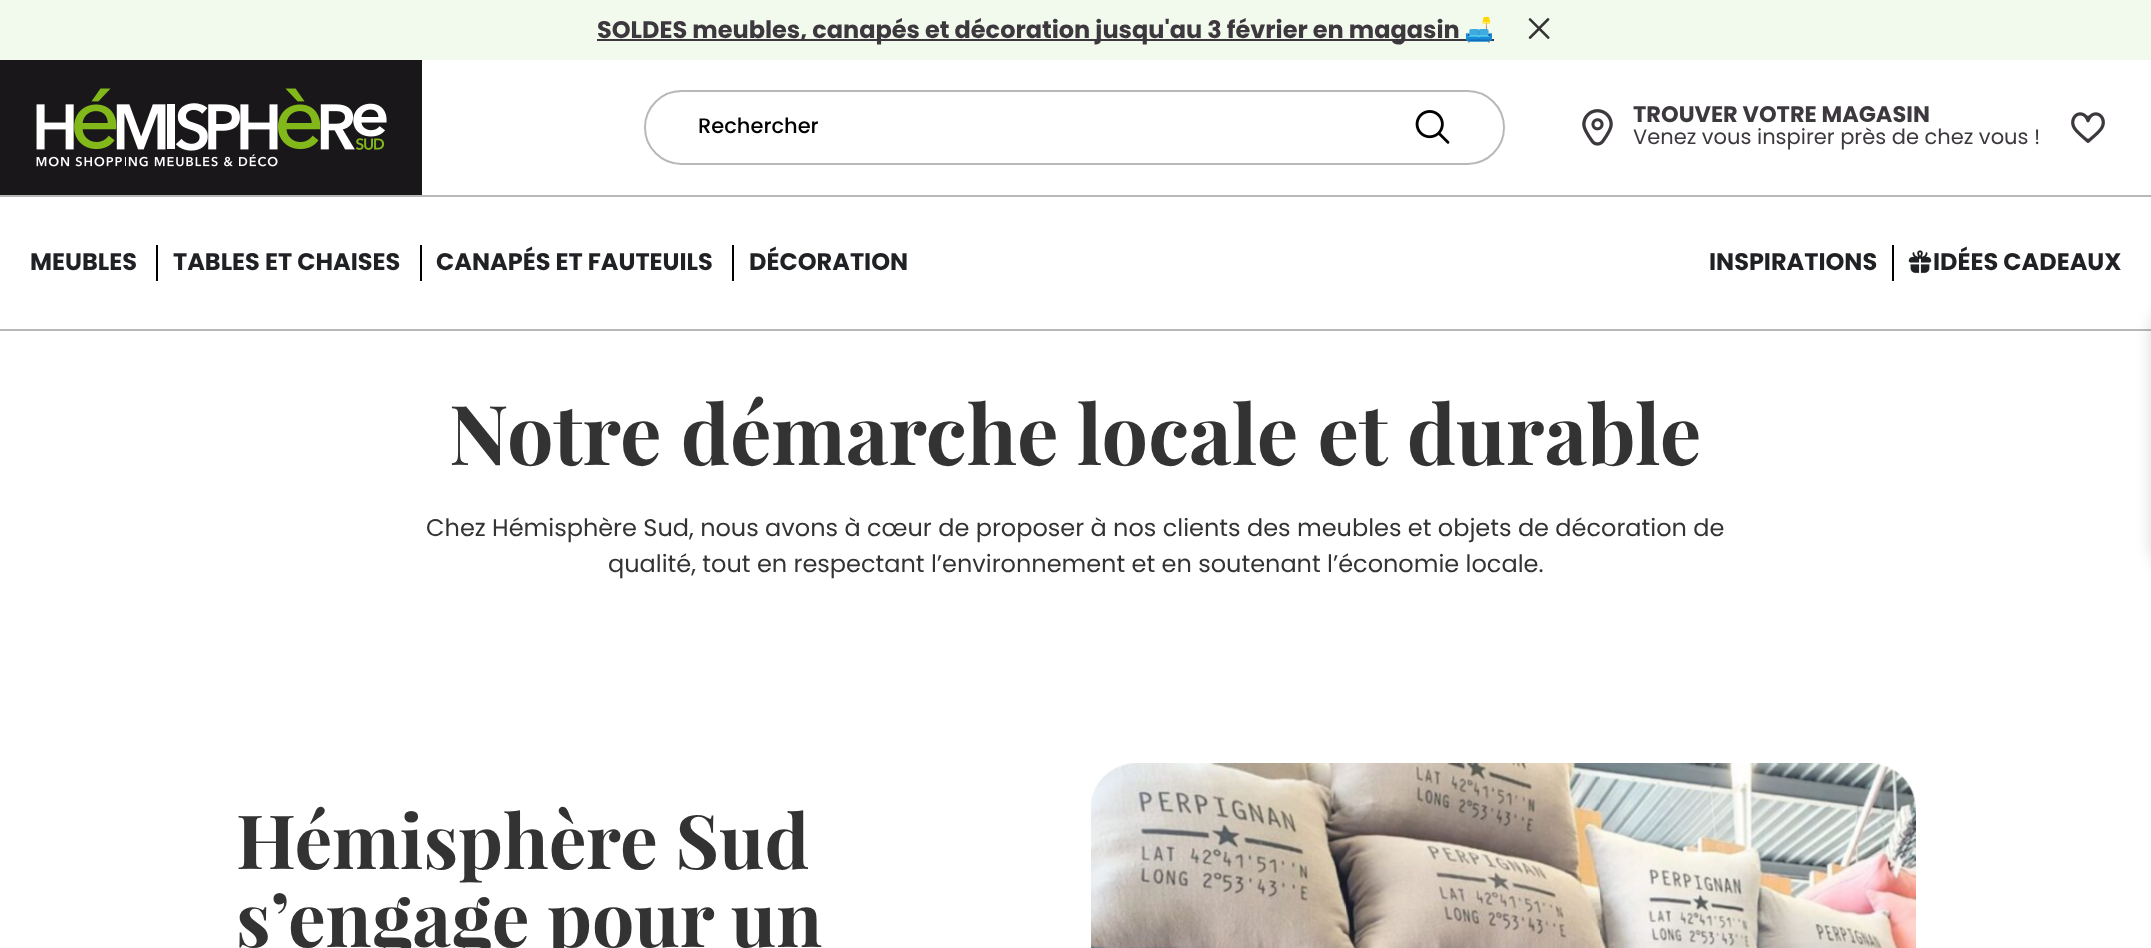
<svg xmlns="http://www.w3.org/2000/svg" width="2151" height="948">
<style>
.a{font:bold 24px Poppins;fill:#3d383e}
.b{font:bold 24px Noto Color Emoji;fill:#3d383e}
.c{font:500 21px Poppins;fill:#000}
.d{font:bold 22.5px Poppins;fill:#3d383e}
.e{font:21px Poppins;fill:#3d383e}
.f{font:bold 24px Poppins;fill:#1f2124}
.g{font:bold 82.5px Playfair Display;fill:#333}
.h{font:24px Poppins;fill:#333}
.i{font:bold 75px Playfair Display;fill:#333}
</style>
<rect width="100%" height="100%" fill="#fff"/>
<path fill="#f2faed" d="M0 0h2151v60H0z"/>
<path fill="#3d383e" d="M597 39h897v2H597z"/>
<image href="1.png" x="1528" y="18" width="22" height="21"/>
<image href="2.png" x="0" y="60" width="422" height="135"/>
<rect fill="none" stroke="#b8b8b8" stroke-width="2" x="645" y="91" width="859" height="73" rx="36.5"/>
<image href="3.png" x="1415" y="110" width="35" height="34"/>
<image href="4.png" x="1582" y="109" width="31" height="37"/>
<image href="5.png" x="2071" y="112" width="34" height="31"/>
<path fill="#b8b8b8" d="M0 195h2151v2H0z"/>
<path fill="#b8b8b8" d="M0 329h2151v2H0z"/>
<path fill="#000" d="M156 245h2v36H156z"/>
<path fill="#000" d="M420 245h2v36H420z"/>
<path fill="#000" d="M732 245h2v36H732z"/>
<path fill="#000" d="M1892 245h2v36H1892z"/>
<image href="6.png" x="1908" y="250" width="24" height="23"/>
<rect fill="#00000026" filter="blur(7.5px)" x="2151" y="303" width="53" height="270" rx="30"/>
<image href="7.png" x="1091" y="763" width="825" height="185"/>
<text class="a" x="597" y="38">SOLDES meubles, canapés et décoration jusqu'au 3 février en magasin</text>
<text class="b" x="1464" y="38">🛋️</text>
<text class="c" x="698" y="133">Rechercher</text>
<text class="d" x="1633" y="122">TROUVER VOTRE MAGASIN</text>
<text class="e" x="1633" y="144">Venez vous inspirer près de chez vous !</text>
<text class="f" x="30" y="270">MEUBLES</text>
<text class="f" x="173" y="270">TABLES ET CHAISES</text>
<text class="f" x="436" y="270">CANAPÉS ET FAUTEUILS</text>
<text class="f" x="749" y="270">DÉCORATION</text>
<text class="f" x="1709" y="270">INSPIRATIONS</text>
<text class="f" x="1933" y="270">IDÉES CADEAUX</text>
<text class="g" x="449" y="465">Notre démarche locale et durable</text>
<text class="h" x="426" y="536">Chez Hémisphère Sud, nous avons à cœur de proposer à nos clients des meubles et objets de décoration de</text>
<text class="h" x="608" y="572">qualité, tout en respectant l’environnement et en soutenant l’économie locale.</text>
<text class="i" x="236" y="869">Hémisphère Sud</text>
<text class="i" x="236" y="947">s’engage pour un</text>
</svg>
